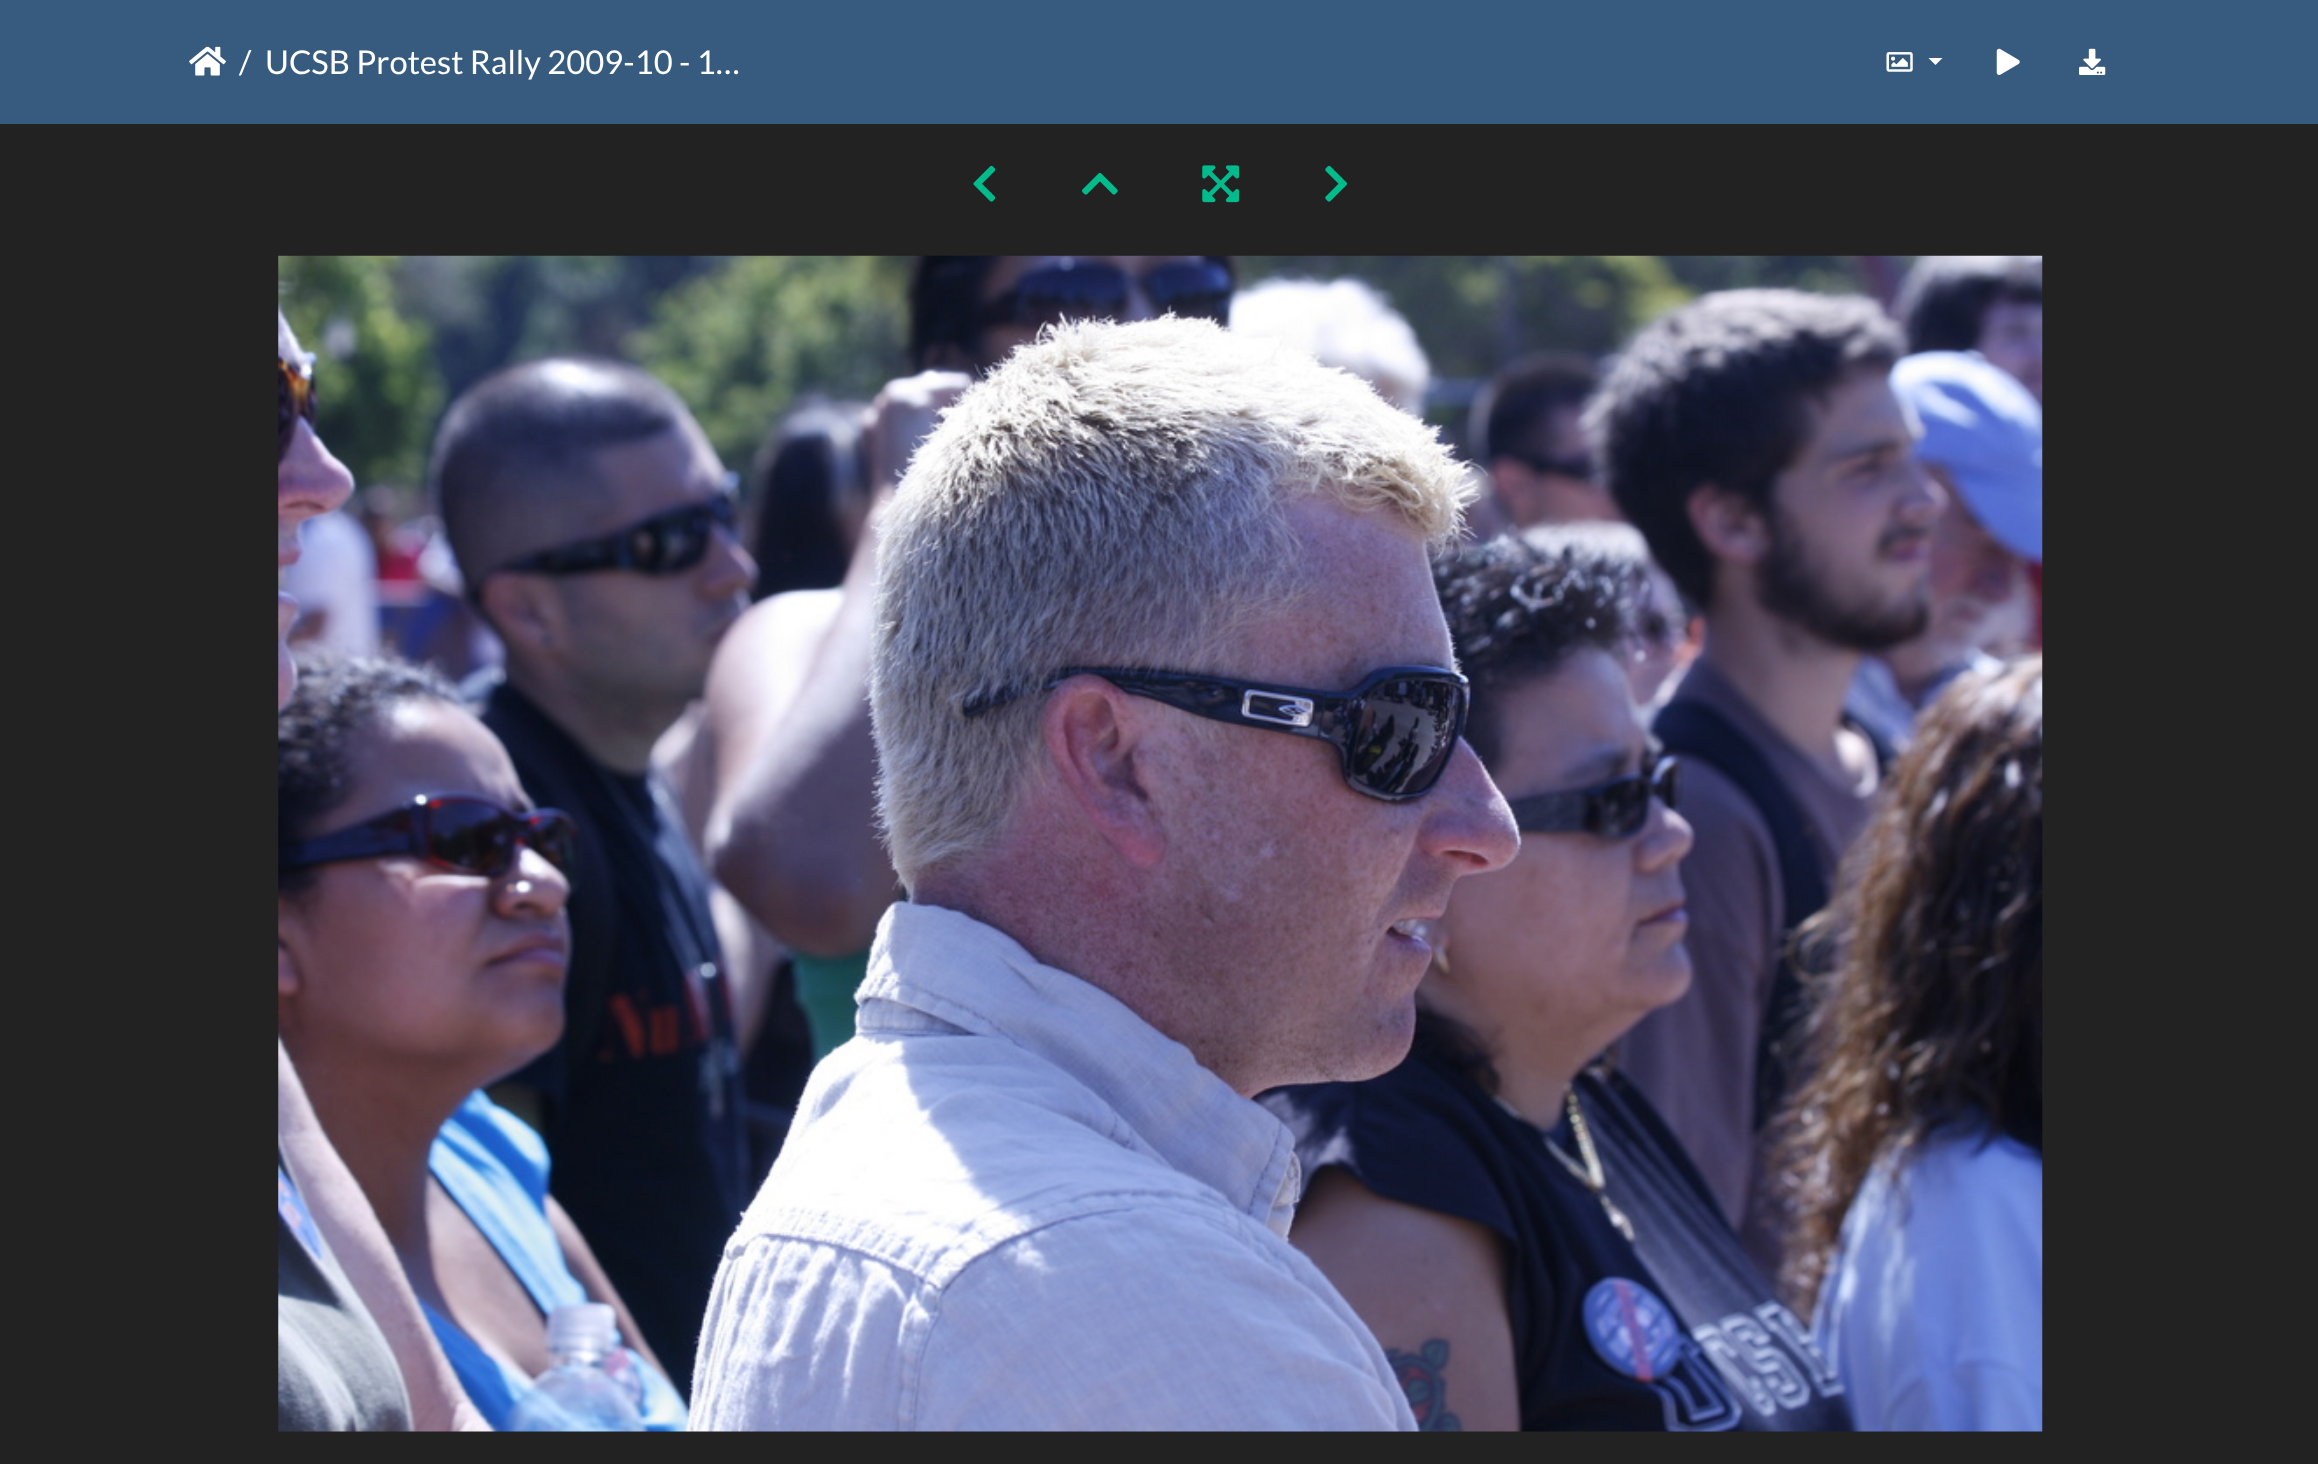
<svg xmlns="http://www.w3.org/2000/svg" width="2318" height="1464">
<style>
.a{font:32.75px Lato;fill:#fff}
</style>
<rect width="100%" height="100%" fill="#222"/>
<path fill="#375a7f" d="M0 0h2318v124H0z"/>
<image href="1.png" x="189" y="46" width="37" height="30"/>
<image href="2.png" x="1886" y="52" width="27" height="20"/>
<path fill="#fff" d="M1928.5 58h14l-7 7z"/>
<image href="3.png" x="1996" y="48" width="24" height="27"/>
<image href="4.png" x="2079" y="48" width="27" height="27"/>
<image href="5.png" x="973" y="165" width="23" height="37"/>
<image href="6.png" x="1082" y="172" width="36" height="23"/>
<image href="7.png" x="1202" y="165" width="37" height="38"/>
<image href="8.png" x="1325" y="165" width="22" height="37"/>
<image href="9.png" x="278" y="255" width="1765" height="1177"/>
<text class="a" x="239" y="74">/</text>
<text class="a" x="265" y="74">UCSB Protest Rally 2009-10 - 1…</text>
</svg>
